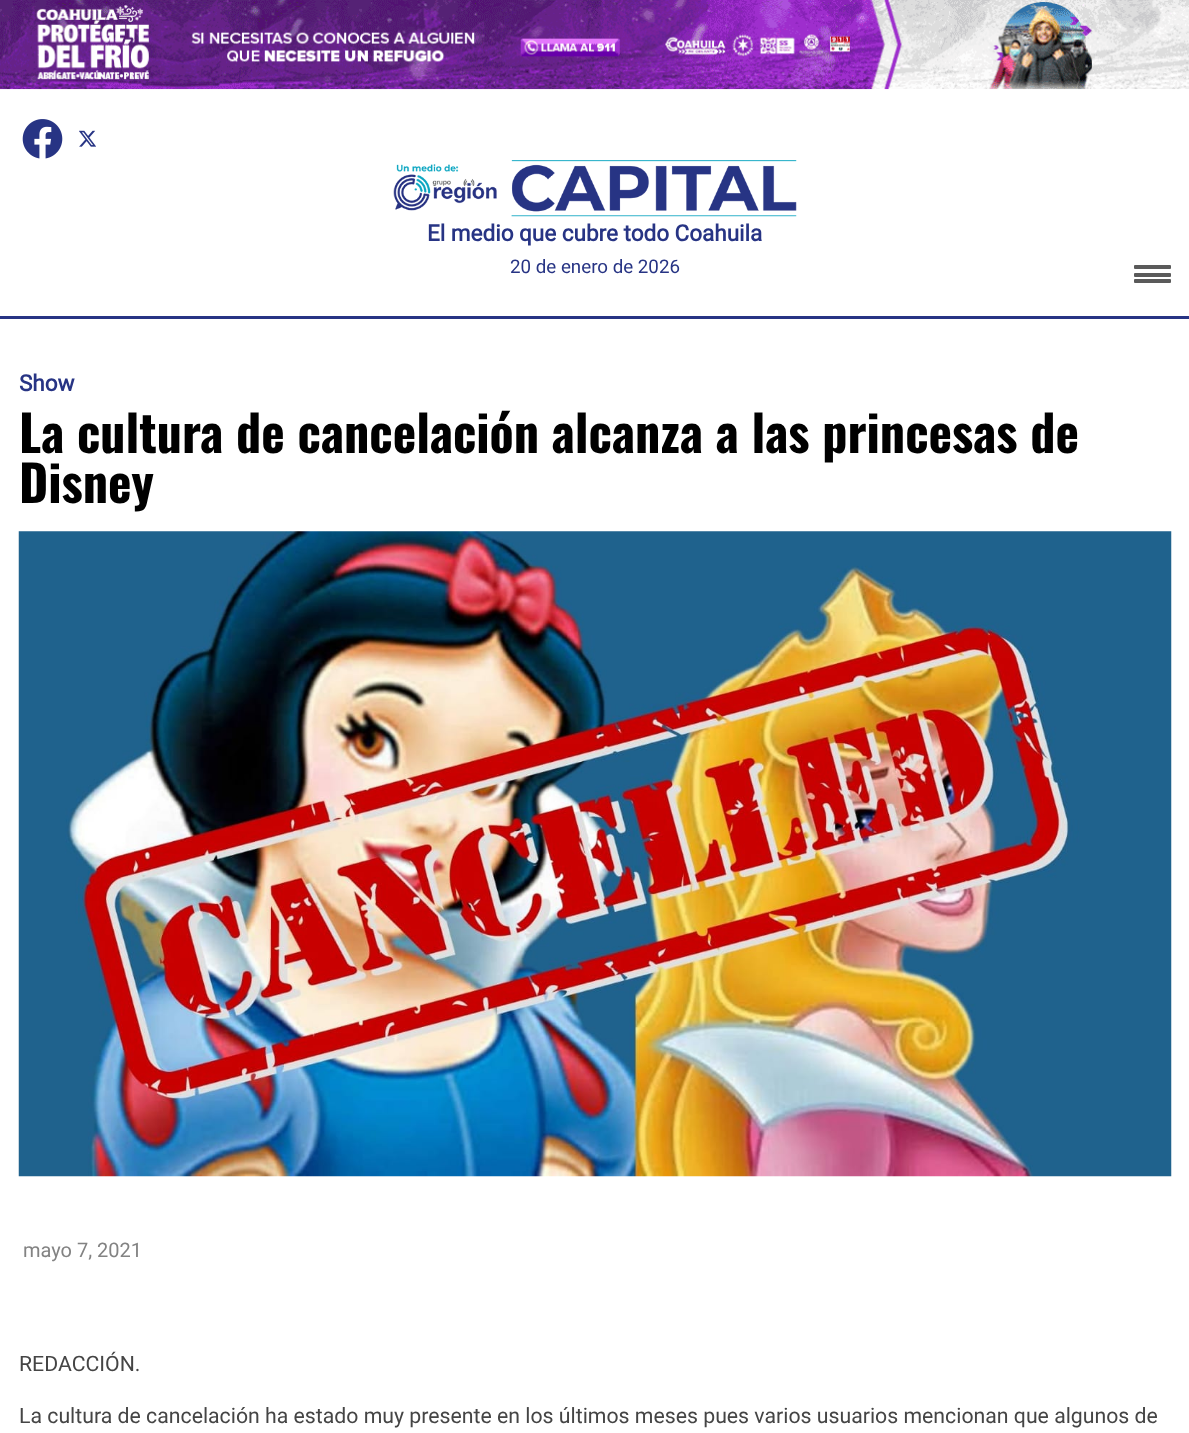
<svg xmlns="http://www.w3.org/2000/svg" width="1189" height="1433">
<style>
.a{font:bold 22.5px Roboto;fill:#273484}
.b{font:18.75px Roboto;fill:#273484}
.c{font:bold 50px Oswald;fill:#000}
.d{font:20px Roboto;fill:#838383}
.e{font:21.25px Roboto;fill:#454545}
</style>
<rect width="100%" height="100%" fill="#fff"/>
<image href="1.png" x="0" y="0" width="1189" height="90"/>
<image href="2.png" x="22" y="119" width="41" height="40"/>
<image href="3.png" x="79" y="130" width="17" height="17"/>
<image href="4.png" x="393" y="160" width="404" height="57"/>
<path fill="#273484" d="M0 316h1189v3H0z"/>
<rect fill="#5a5a5a" x="1134" y="265" width="37" height="4" rx="1"/>
<rect fill="#5a5a5a" x="1134" y="273" width="37" height="4" rx="1"/>
<rect fill="#5a5a5a" x="1134" y="279" width="37" height="4" rx="1"/>
<image href="5.png" x="18" y="531" width="1154" height="646"/>
<text class="a" x="427" y="241">El medio que cubre todo Coahuila</text>
<text class="b" x="510" y="273">20 de enero de 2026</text>
<text class="a" x="19" y="391">Show</text>
<text class="c" x="19" y="453">La cultura de cancelación alcanza a las princesas de</text>
<text class="c" x="19" y="503">Disney</text>
<text class="d" x="23" y="1257">mayo 7, 2021</text>
<text class="e" x="19" y="1371">REDACCIÓN.</text>
<text class="e" x="19" y="1423">La cultura de cancelación ha estado muy presente en los últimos meses pues varios usuarios mencionan que algunos de</text>
</svg>
